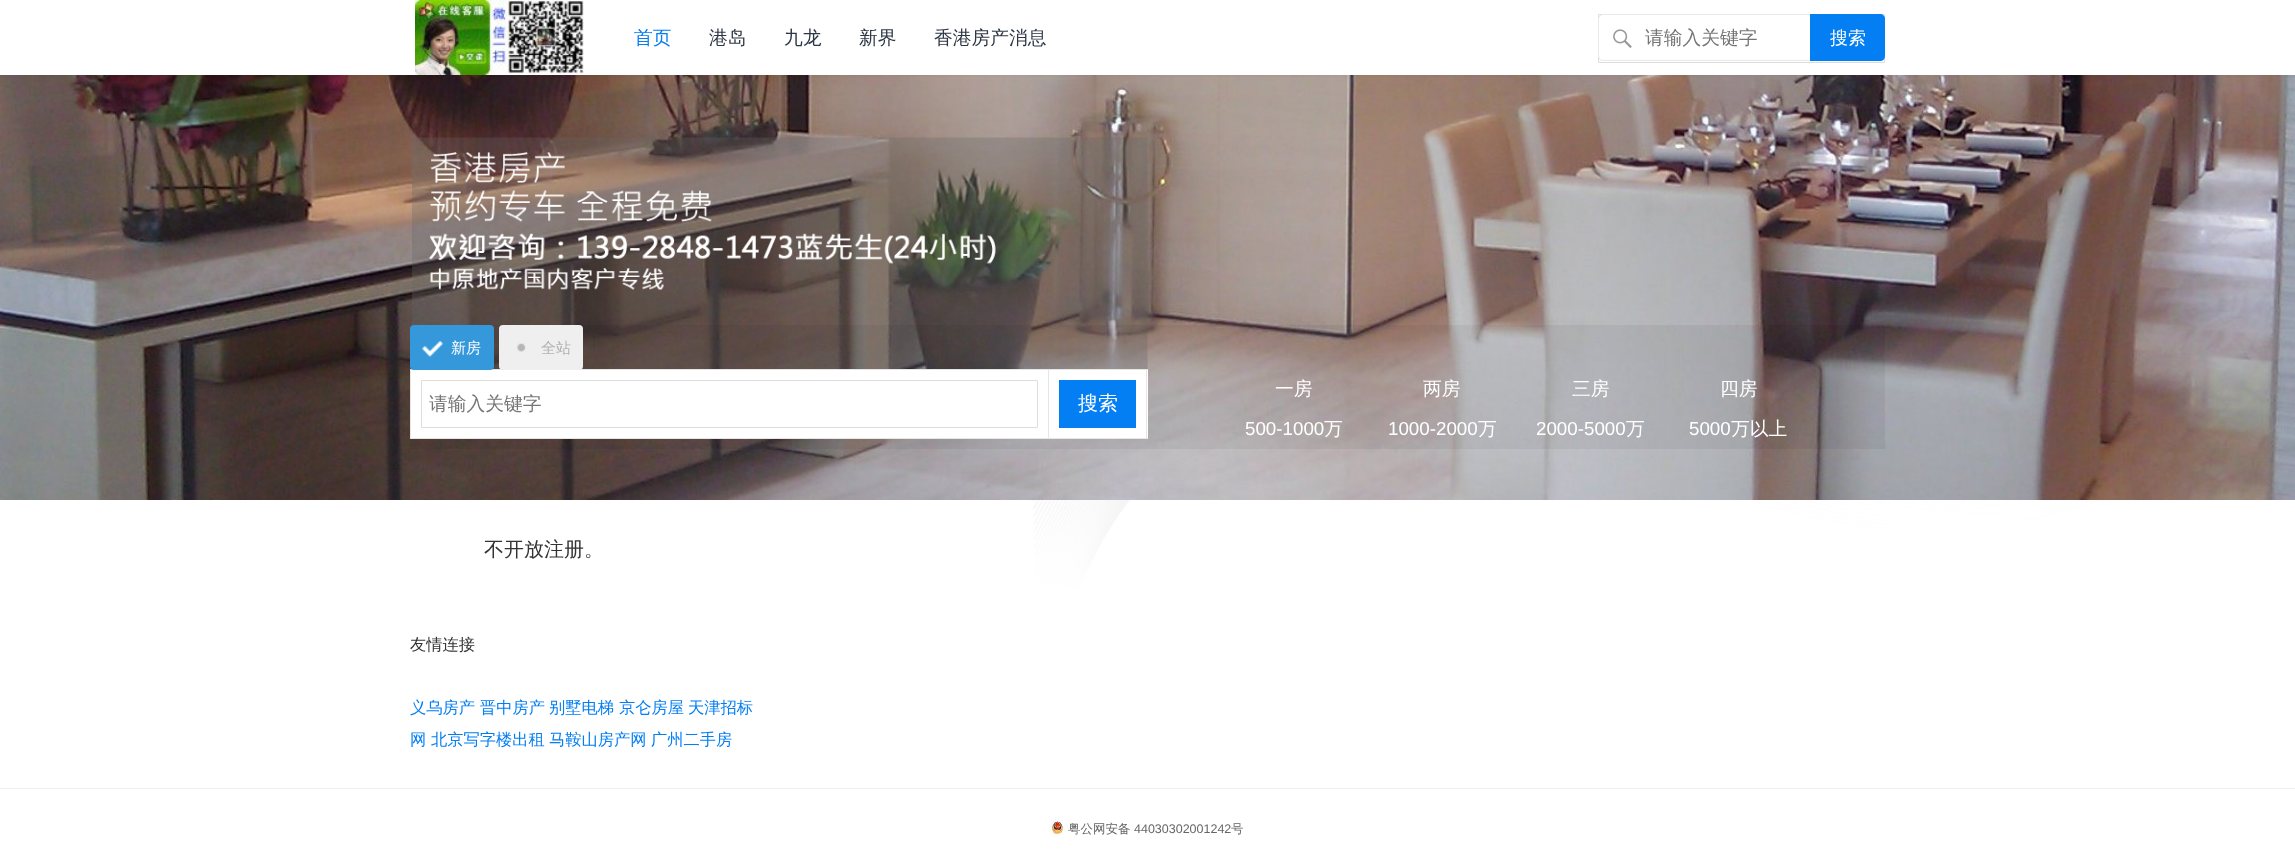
<svg xmlns="http://www.w3.org/2000/svg" width="2295" height="849">
<style>
.a{font:500 18.75px WenQuanYi Zen Hei;fill:#037ef3}
.b{font:500 18.75px WenQuanYi Zen Hei;fill:#2c3644}
.c{font:500 18.75px WenQuanYi Zen Hei;fill:#757575}
.d{font:500 18px WenQuanYi Zen Hei;fill:#fff}
.e{font:500 15px WenQuanYi Zen Hei;fill:#fff}
.f{font:500 15px WenQuanYi Zen Hei;fill:#b3b3b3}
.g{font:500 20px WenQuanYi Zen Hei;fill:#fff}
.h{font:500 18.75px WenQuanYi Zen Hei;fill:#fff}
.i{font:18.75px Liberation Sans;fill:#fff}
.j{font:500 20px WenQuanYi Zen Hei;fill:#333}
.k{font:500 16.25px WenQuanYi Zen Hei;fill:#333}
.l{font:500 16.25px WenQuanYi Zen Hei;fill:#037ef3}
.m{font:500 12.5px WenQuanYi Zen Hei;fill:#666}
.n{font:12.5px Liberation Sans;fill:#666}
</style>
<rect width="100%" height="100%" fill="#fff"/>
<image href="1.png" x="0" y="500" width="2295" height="349"/>
<image href="4.png" x="0" y="75" width="2295" height="425"/>
<path fill="#0000000a" filter="blur(1px)" d="M0 1h2295v75H0z"/>
<path fill="#fff" d="M0 0h2295v75H0z"/>
<image href="2.png" x="415" y="0" width="169" height="75"/>
<path fill="none" stroke="#ddd" d="M1598.5 14.5h286v48H1598.5z"/>
<rect fill="#fff" stroke="#e9e9e9" x="1598.5" y="14.5" width="286" height="46" rx="4.5"/>
<image href="3.png" x="1613" y="29" width="19" height="19"/>
<path fill="#037ef3" d="M1810 14h70c3 0 5 2 5 5v37c0 3-2 5-5 5h-70z"/>
<image href="5.png" x="412" y="137" width="736" height="232"/>
<path fill="#0000000d" d="M410 325h1475v124H410z"/>
<path fill="#e6e6e6" d="M1048 369h100v1H1048z"/>
<path fill="#fff" d="M1049 370h99v68H1049z"/>
<path fill="#e6e6e6" d="M1146 369h1v70H1146z"/>
<path fill="#e6e6e6" d="M1048 438h100v1H1048z"/>
<path fill="#e6e6e6" d="M1048 369h1v70H1048z"/>
<path fill="#e6e6e6" d="M410 369h639v1H410z"/>
<path fill="#e6e6e6" d="M410 438h639v1H410z"/>
<path fill="#e6e6e6" d="M410 369h1v70H410z"/>
<rect fill="#3498db" x="410" y="325" width="84" height="45" rx="4"/>
<image href="6.png" x="422" y="341" width="21" height="16"/>
<rect fill="#efefef" x="499" y="325" width="84" height="45" rx="4"/>
<image href="7.png" x="517" y="343" width="9" height="9"/>
<path fill="#fff" d="M411 370h637v68H411z"/>
<path fill="none" stroke="#ddd" d="M421.5 380.5h616v47H421.5z"/>
<path fill="#037ef3" d="M1059 380h77v48H1059z"/>
<path fill="#f0f0f0" d="M0 788h2295v1H0z"/>
<image href="8.png" x="1052" y="821" width="11" height="13"/>
<text class="a" x="634" y="44">首页</text>
<text class="b" x="709" y="44">港岛</text>
<text class="b" x="784" y="44">九龙</text>
<text class="b" x="859" y="44">新界</text>
<text class="b" x="934" y="44">香港房产消息</text>
<text class="c" x="1645" y="44">请输入关键字</text>
<text class="d" x="1830" y="44">搜索</text>
<text class="e" x="451" y="353">新房</text>
<text class="f" x="541" y="353">全站</text>
<text class="c" x="429" y="410">请输入关键字</text>
<text class="g" x="1078" y="410">搜索</text>
<text class="h" x="1275" y="395">一房</text>
<text class="h" x="1423" y="395">两房</text>
<text class="h" x="1572" y="395">三房</text>
<text class="h" x="1720" y="395">四房</text>
<text class="i" x="1245" y="435">500-1000</text>
<text class="h" x="1324" y="435">万</text>
<text class="i" x="1388" y="435">1000-2000</text>
<text class="h" x="1478" y="435">万</text>
<text class="i" x="1536" y="435">2000-5000</text>
<text class="h" x="1626" y="435">万</text>
<text class="i" x="1689" y="435">5000</text>
<text class="h" x="1731" y="435">万以上</text>
<text class="j" x="484" y="556">不开放注册。</text>
<text class="k" x="410" y="650">友情连接</text>
<text class="l" x="410" y="713">义乌房产</text>
<text class="l" x="480" y="713">晋中房产</text>
<text class="l" x="549" y="713">别墅电梯</text>
<text class="l" x="619" y="713">京仑房屋</text>
<text class="l" x="688" y="713">天津招标</text>
<text class="l" x="410" y="745">网</text>
<text class="l" x="431" y="745">北京写字楼出租</text>
<text class="l" x="549" y="745">马鞍山房产网</text>
<text class="l" x="651" y="745">广州二手房</text>
<text class="m" x="1068" y="833">粤公网安备</text>
<text class="n" x="1134" y="833">44030302001242</text>
<text class="m" x="1231" y="833">号</text>
</svg>
